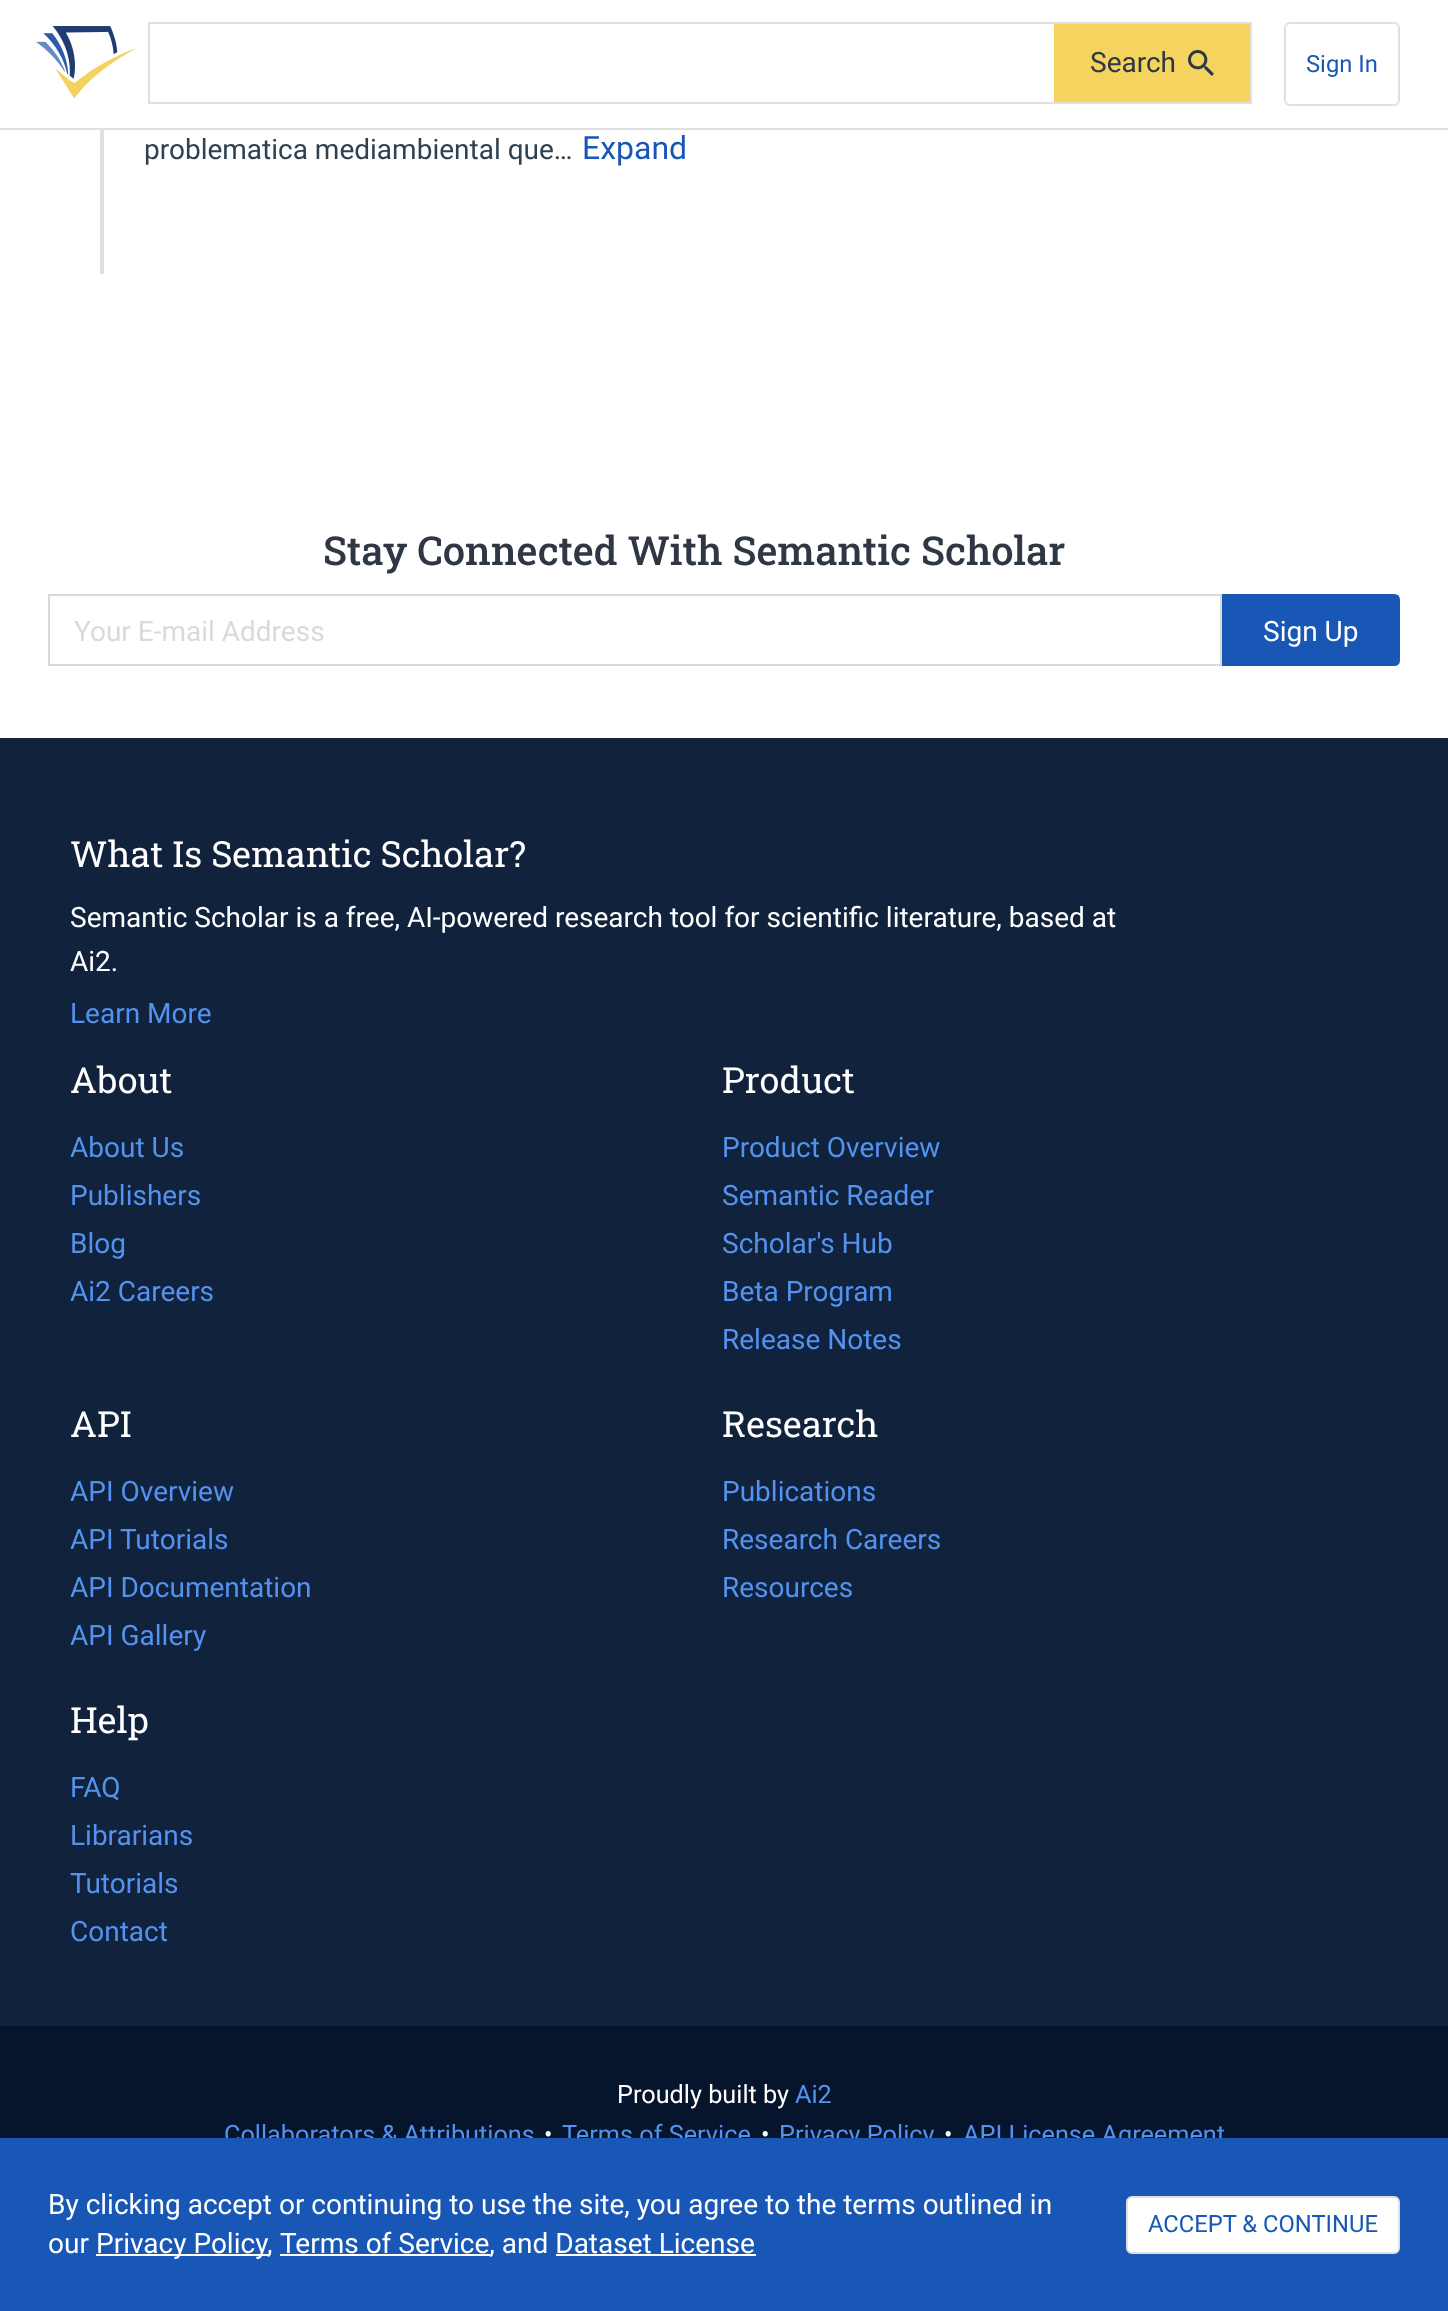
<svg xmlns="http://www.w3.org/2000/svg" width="1448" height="2311">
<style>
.a{font:28px Roboto;fill:#2e3743}
.b{font:23.75px Roboto;fill:#1857b6}
.c{font:28px Roboto;fill:#2e414f}
.d{font:32px Roboto;fill:#1857b6}
.e{font:500 40px Roboto Slab;fill:#2e3743}
.f{font:28px Roboto;fill:#d9dadb}
.g{font:28px Roboto;fill:#fff}
.h{font:36px Roboto Slab;fill:#fff}
.i{font:28px Roboto;fill:#5492ef}
.j{font:25.25px Roboto;fill:#fff}
.k{font:25.25px Roboto;fill:#5492ef}
</style>
<rect width="100%" height="100%" fill="#fff"/>
<path fill="#e0e0e0" d="M0 128h1448v2H0z"/>
<image href="1.png" x="36" y="26" width="101" height="72"/>
<path fill="none" stroke="#e0e0e0" stroke-width="2" d="M149 23h1102v80H149z"/>
<path fill="#f4d35e" d="M1054 24h196v78H1054z"/>
<image href="2.png" x="1188" y="50" width="26" height="26"/>
<rect fill="none" stroke="#e0e0e0" stroke-width="2" x="1285" y="23" width="114" height="82" rx="5"/>
<path fill="#e0e0e0" d="M100 130h4v144H100z"/>
<path fill="#06152c" d="M0 2026h1448v112H0z"/>
<path fill="none" stroke="#d9dadb" stroke-width="2" d="M49 595h1172v70H49z"/>
<path fill="#1857b6" stroke="#1857b6" stroke-width="2" d="M1223 595h171c3 0 5 2 5 5v60c0 3-2 5-5 5h-171z"/>
<path fill="#11223d" d="M0 738h1448v1288H0z"/>
<text class="a" x="1090" y="72">Search</text>
<text class="b" x="1306" y="72">Sign In</text>
<text class="c" x="144" y="159">problematica mediambiental que…</text>
<text class="d" x="582" y="159">Expand</text>
<text class="e" x="323" y="565">Stay Connected With Semantic Scholar</text>
<text class="f" x="74" y="641">Your E-mail Address</text>
<text class="g" x="1263" y="641">Sign Up</text>
<text class="h" x="70" y="867">What Is Semantic Scholar?</text>
<text class="g" x="70" y="927">Semantic Scholar is a free, AI-powered research tool for scientific literature, based at</text>
<text class="g" x="70" y="971">Ai2.</text>
<text class="i" x="70" y="1023">Learn More</text>
<text class="h" x="70" y="1093">About</text>
<text class="i" x="70" y="1157">About Us</text>
<text class="i" x="70" y="1205">Publishers</text>
<text class="i" x="70" y="1253">Blog</text>
<text class="i" x="70" y="1301">Ai2 Careers</text>
<text class="h" x="722" y="1093">Product</text>
<text class="i" x="722" y="1157">Product Overview</text>
<text class="i" x="722" y="1205">Semantic Reader</text>
<text class="i" x="722" y="1253">Scholar's Hub</text>
<text class="i" x="722" y="1301">Beta Program</text>
<text class="i" x="722" y="1349">Release Notes</text>
<text class="h" x="70" y="1437">API</text>
<text class="i" x="70" y="1501">API Overview</text>
<text class="i" x="70" y="1549">API Tutorials</text>
<text class="i" x="70" y="1597">API Documentation</text>
<text class="i" x="70" y="1645">API Gallery</text>
<text class="h" x="722" y="1437">Research</text>
<text class="i" x="722" y="1501">Publications</text>
<text class="i" x="722" y="1549">Research Careers</text>
<text class="i" x="722" y="1597">Resources</text>
<text class="h" x="70" y="1733">Help</text>
<text class="i" x="70" y="1797">FAQ</text>
<text class="i" x="70" y="1845">Librarians</text>
<text class="i" x="70" y="1893">Tutorials</text>
<text class="i" x="70" y="1941">Contact</text>
<text class="j" x="617" y="2103">Proudly built by</text>
<text class="k" x="795" y="2103">Ai2</text>
<text class="k" x="224" y="2143">Collaborators &amp; Attributions</text>
<text class="j" x="544" y="2143">•</text>
<text class="k" x="562" y="2143">Terms of Service</text>
<text class="j" x="761" y="2143">•</text>
<text class="k" x="779" y="2143">Privacy Policy</text>
<text class="j" x="944" y="2143">•</text>
<text class="k" x="963" y="2143">API License Agreement</text>
<path fill="#1857b6" d="M0 2138h1448v173H0z"/>
<text class="g" x="48" y="2214">By clicking accept or continuing to use the site, you agree to the terms outlined in</text>
<text class="g" x="48" y="2253">our</text>
<path fill="#fff" d="M96 2254h172v2H96z"/>
<text class="g" x="96" y="2253">Privacy Policy,</text>
<path fill="#fff" d="M280 2254h210v2H280z"/>
<text class="g" x="280" y="2253">Terms of Service, and Dataset License</text>
<path fill="#fff" d="M556 2254h200v2H556z"/>
<rect fill="#fff" stroke="#e0e0e0" stroke-width="2" x="1127" y="2197" width="272" height="56" rx="5"/>
<text class="b" x="1148" y="2232">ACCEPT &amp; CONTINUE</text>
</svg>
